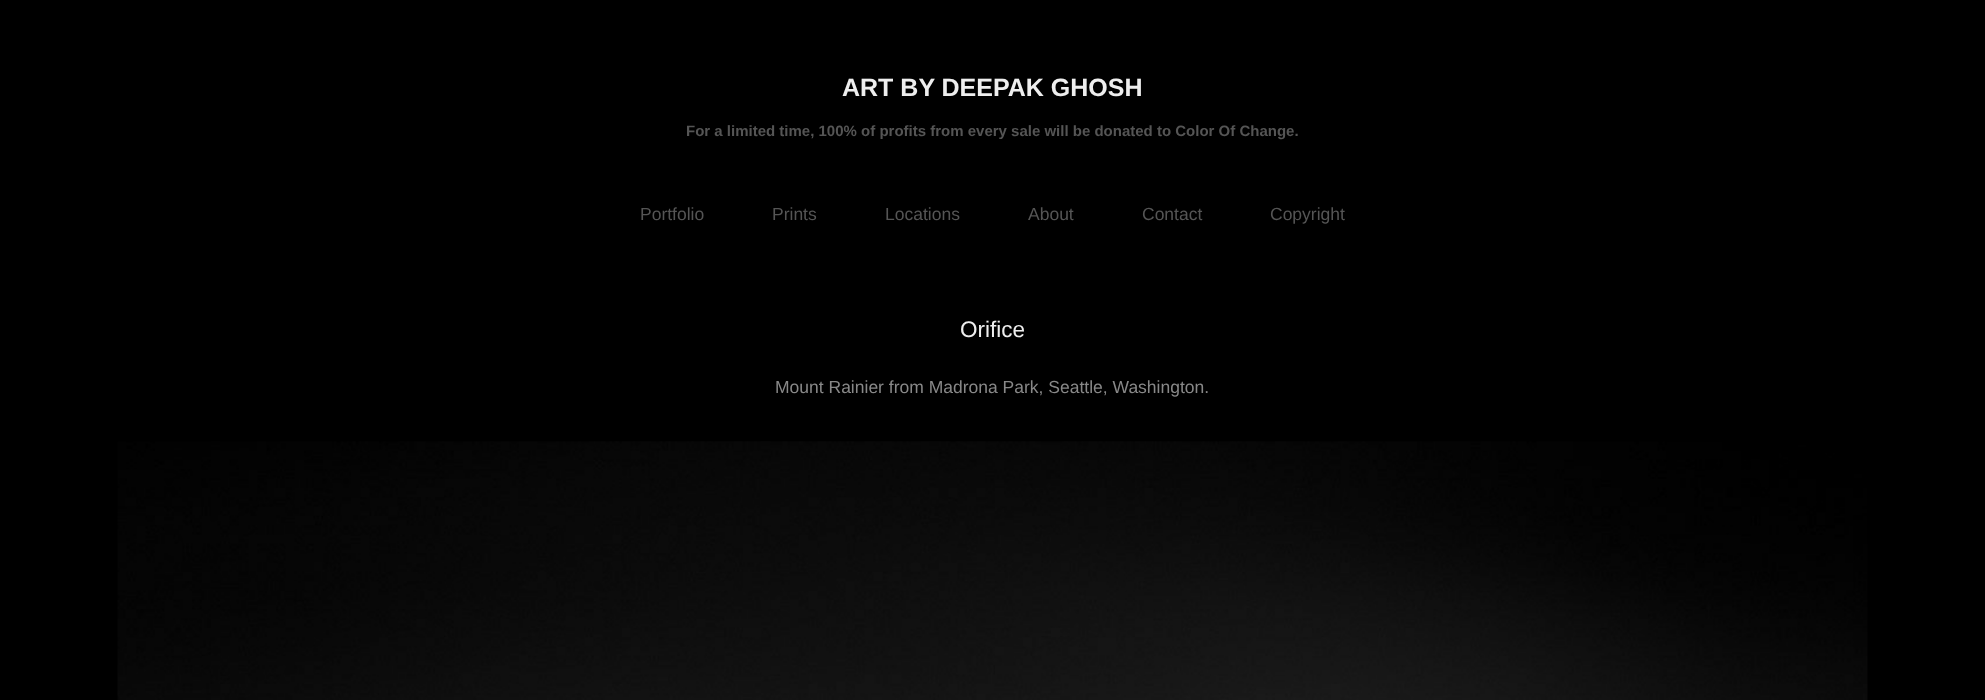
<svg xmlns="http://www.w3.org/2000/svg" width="1985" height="700">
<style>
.a{font:bold 25px Liberation Sans;fill:#eee}
.b{font:bold 15px Liberation Sans;fill:#555}
.c{font:17.5px Liberation Sans;fill:#555}
.d{font:22.5px Liberation Sans;fill:#eee}
.e{font:17.5px Liberation Sans;fill:#888}
</style>
<rect width="100%" height="100%" fill="#000"/>
<image href="1.png" x="117" y="441" width="1751" height="259"/>
<text class="a" x="842" y="96">ART BY DEEPAK GHOSH</text>
<text class="b" x="686" y="136">For a limited time, 100% of profits from every sale will be donated to Color Of Change.</text>
<text class="c" x="640" y="220">Portfolio</text>
<text class="c" x="772" y="220">Prints</text>
<text class="c" x="885" y="220">Locations</text>
<text class="c" x="1028" y="220">About</text>
<text class="c" x="1142" y="220">Contact</text>
<text class="c" x="1270" y="220">Copyright</text>
<text class="d" x="960" y="337">Orifice</text>
<text class="e" x="775" y="393">Mount Rainier from Madrona Park, Seattle, Washington.</text>
</svg>
